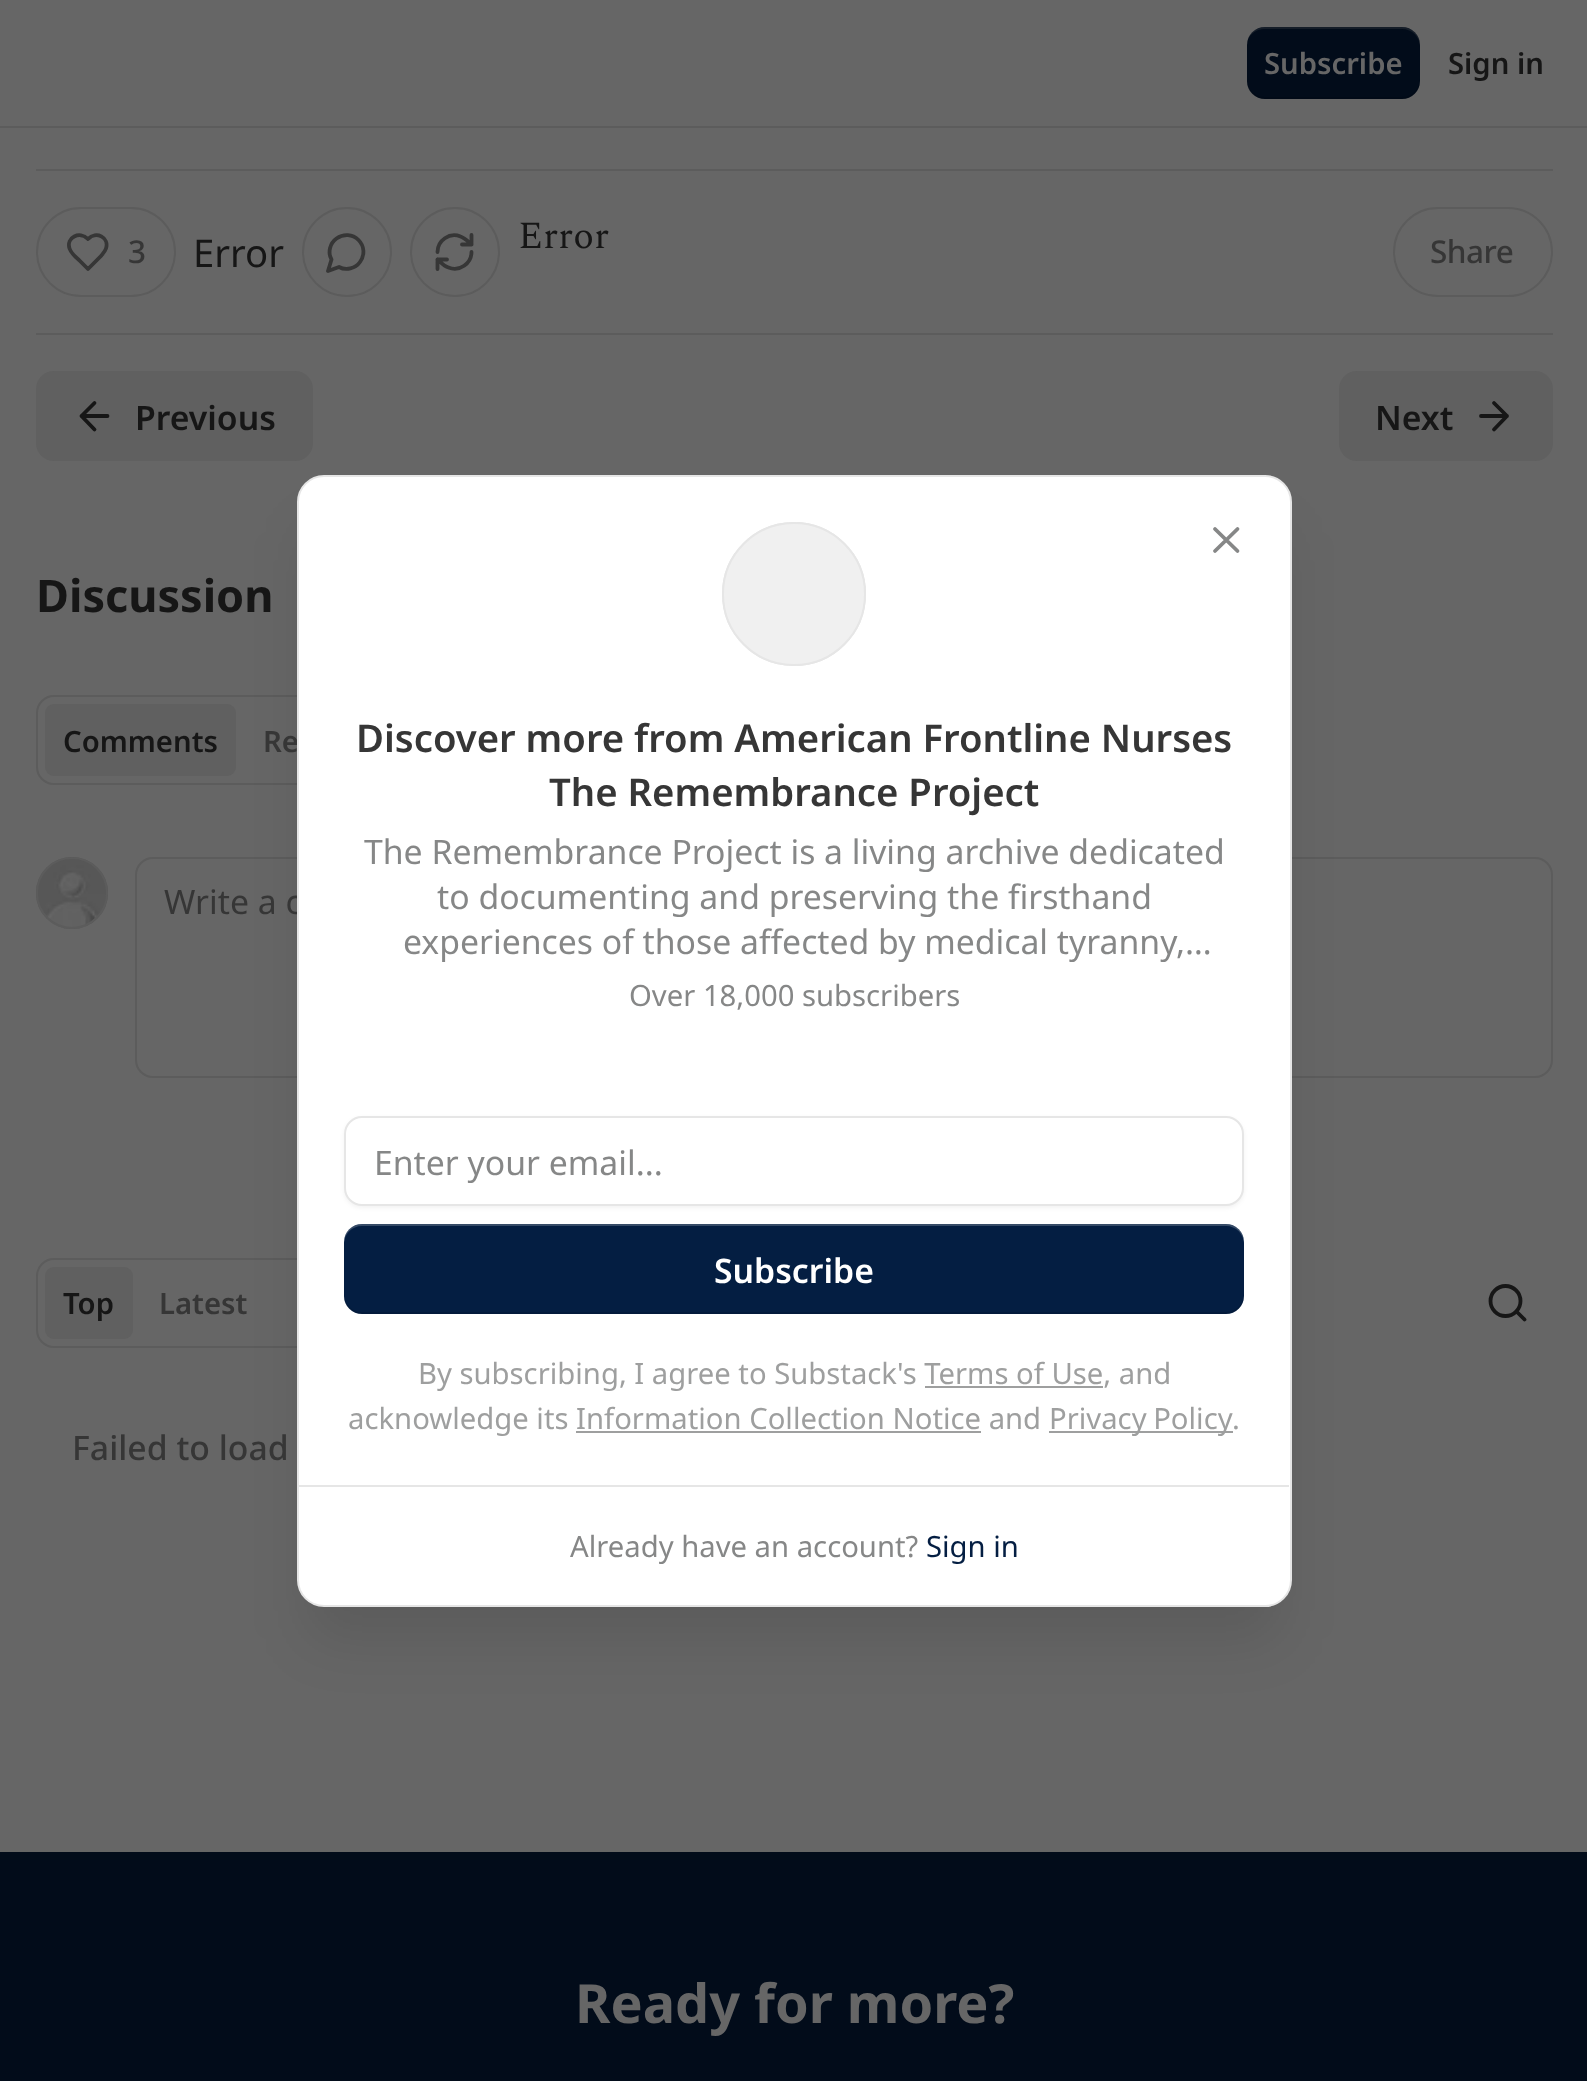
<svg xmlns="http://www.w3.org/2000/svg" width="1587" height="2081">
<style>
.a{font:600 29.25px Noto Sans;fill:#666}
.b{font:600 29.25px Noto Sans;fill:#161616}
.c{font:38.25px Spectral;fill:#161616}
.d{font:500 31.5px Noto Sans;letter-spacing:-0.5px;fill:#363636}
.e{font:38.25px Noto Sans;fill:#161616}
.f{font:600 33.75px Noto Sans;fill:#161616}
.g{font:bold 45px Noto Sans;fill:#161616}
.h{font:600 29.25px Noto Sans;fill:#363636}
.i{font:33.75px Noto Sans;fill:#363636}
.j{font:29.25px Noto Sans;fill:#9e9f9f}
.k{font:600 33.75px Noto Sans;fill:#fff}
.l{font:33.75px Noto Sans;fill:#868787}
.m{font:29.25px Noto Sans;fill:#868787}
.n{font:600 38.25px Noto Sans;fill:#363636}
.o{font:29.25px Noto Sans;fill:#041e42}
.p{font:500 33.75px Noto Sans;fill:#363636}
.q{font:bold 54px Noto Sans;fill:#666}
</style>
<rect width="100%" height="100%" fill="#666"/>
<path fill="#5c5c5c" d="M0 126h1587v2H0z"/>
<rect fill="#020c1a" x="1247" y="27" width="173" height="72" rx="18"/>
<path fill="#0000001a" d="M1248 87c2 7 9 12 17 12h137c10 0 18-8 18-18v-2c0 10-8 18-18 18h-138c-6 0-13-4-16-10z"/>
<path fill="#66666633" d="M1264 29h138c10 0 18 8 18 18v-2c0-10-8-18-18-18h-137c-8 0-15 5-17 12c3-6 10-10 16-10z"/>
<path fill="#5c5c5c" d="M36 169h1517v2H36z"/>
<path fill="#5c5c5c" d="M36 333h1517v2H36z"/>
<circle fill="none" stroke="#5c5c5c" stroke-width="2" cx="347" cy="252" r="44"/>
<path fill="none" stroke="#363636" stroke-width="3.8" stroke-linecap="round" stroke-linejoin="round" d="M339 267c7 4 16.5 1.5 21-5c5-7 4.5-16-1.5-22c-6-6-15-6.5-22-1.5c-6.5 4.5-9 14-5 21l-3.5 11.5z"/>
<circle fill="none" stroke="#5c5c5c" stroke-width="2" cx="455" cy="252" r="44"/>
<path fill="none" stroke="#363636" stroke-width="3.8" stroke-linecap="round" stroke-linejoin="round" d="M471.5 235v9.5m0 0h-9.5m9.5 0c-3.5-3-6.5-6.5-11-8c-11-4.5-23 4-23 15.5m0 17v-9.5m0 0h9.5m-9.5 0c3.5 3 6.5 6.5 11 8c11 4.5 23-4 23-15.5"/>
<rect fill="none" stroke="#5c5c5c" stroke-width="2" x="37" y="208" width="138" height="88" rx="44"/>
<path fill="none" stroke="#363636" stroke-width="3.8" stroke-linecap="round" stroke-linejoin="round" d="M101 256c2-2.5 4-4.5 5-7.5c3.5-11-10-18-18-9.5c-8.5-8.5-22-1.5-18.5 9.5c1.5 4.5 6 8.5 9.5 11.5l9 9z"/>
<rect fill="none" stroke="#5c5c5c" stroke-width="2" x="1394" y="208" width="158" height="88" rx="44"/>
<rect fill="#606060" x="36" y="371" width="277" height="90" rx="18"/>
<path fill="none" stroke="#161616" stroke-width="3.8" stroke-linecap="round" stroke-linejoin="round" d="M94.5 429.5l-13-13.5l13-13m13 13h-26"/>
<rect fill="#606060" x="1339" y="371" width="214" height="90" rx="18"/>
<path fill="none" stroke="#161616" stroke-width="3.8" stroke-linecap="round" stroke-linejoin="round" d="M1481 416h26m-13-13l13 13l-13 13.5"/>
<rect fill="none" stroke="#5c5c5c" stroke-width="2" x="37" y="696" width="378" height="88" rx="17"/>
<rect fill="#606060" x="45" y="704" width="191" height="72" rx="9"/>
<rect fill="none" stroke="#5c5c5c" stroke-width="2" x="136" y="858" width="1416" height="219" rx="17"/>
<rect fill="none" stroke="#5c5c5c" stroke-width="2" x="37" y="1259" width="448" height="88" rx="17"/>
<rect fill="#0000001a" filter="blur(28px)" x="308" y="531" width="972" height="1109" rx="16"/>
<circle fill="none" stroke="#5c5c5c" stroke-width="2" cx="72" cy="893" r="35"/>
<image href="1.png" x="36" y="857" width="72" height="71"/>
<circle fill="none" stroke="#5c5c5c" stroke-width="2" cx="72" cy="893" r="35"/>
<rect fill="#606060" x="45" y="1267" width="88" height="72" rx="9"/>
<circle fill="none" stroke="#161616" stroke-width="3.8" cx="1505.5" cy="1301" r="15"/>
<path fill="none" stroke="#161616" stroke-width="3.8" stroke-linecap="round" stroke-linejoin="round" d="M1524.5 1319.5l-8-8"/>
<path fill="#020c1a" d="M0 1852h1587v229H0z"/>
<text class="a" x="1264" y="74">Subscribe</text>
<text class="b" x="1448" y="74">Sign in</text>
<text class="c" x="518" y="248">Error</text>
<text class="d" x="128" y="263">3</text>
<text class="e" x="193" y="267">Error</text>
<text class="d" x="1430" y="263">Share</text>
<text class="f" x="135" y="430">Previous</text>
<text class="f" x="1375" y="430">Next</text>
<text class="g" x="36" y="612">Discussion</text>
<text class="b" x="63" y="752">Comments</text>
<text class="h" x="263" y="752">Re</text>
<text class="i" x="164" y="914">Write a c</text>
<rect fill="#fff" stroke="#e6e6e6" stroke-width="2" x="298" y="476" width="993" height="1130" rx="26"/>
<text class="j" x="1232" y="1429">.</text>
<path fill="#9e9f9f" d="M1049 1431h184v2H1049z"/>
<text class="j" x="1049" y="1429" word-spacing="-1">Privacy Policy</text>
<path fill="#9e9f9f" d="M576 1431h405v2H576z"/>
<text class="j" x="348" y="1429">acknowledge its Information Collection Notice and</text>
<path fill="#9e9f9f" d="M925 1386h178v2H925z"/>
<text class="j" x="418" y="1384">By subscribing, I agree to Substack's Terms of Use, and</text>
<rect fill="#041e42" x="344" y="1224" width="900" height="90" rx="18"/>
<text class="k" x="714" y="1283">Subscribe</text>
<path fill="#ffffff33" d="M362 1226h864c10 0 18 8 18 18v-2c0-10-8-18-18-18h-864c-10 0-18 8-18 18v2c0-10 8-18 18-18z"/>
<path fill="#0000001a" d="M344 1294v2c0 10 8 18 18 18h864c10 0 18-8 18-18v-2c0 10-8 18-18 18h-864c-10 0-18-8-18-18z"/>
<rect fill="#0000000d" filter="blur(2px)" x="344" y="1118" width="900" height="90" rx="18"/>
<rect fill="#fff" stroke="#e6e6e6" stroke-width="2" x="345" y="1117" width="898" height="88" rx="17"/>
<text class="l" x="374" y="1175">Enter your email...</text>
<circle fill="none" stroke="#e6e6e6" stroke-width="2" cx="794" cy="594" r="71"/>
<circle fill="#f0f0f0" stroke="#e6e6e6" stroke-width="2" cx="794" cy="594" r="71"/>
<path fill="none" stroke="#868787" stroke-width="3.8" stroke-linecap="round" stroke-linejoin="round" d="M1237.5 529l-22.5 22m0-22l22.5 22"/>
<text class="l" x="403" y="954">experiences of those affected by medical tyranny,…</text>
<text class="l" x="437" y="909">to documenting and preserving the firsthand</text>
<text class="l" x="364" y="864">The Remembrance Project is a living archive dedicated</text>
<text class="m" x="629" y="1006">Over 18,000 subscribers</text>
<text class="n" x="549" y="806">The Remembrance Project</text>
<text class="n" x="356" y="752">Discover more from American Frontline Nurses</text>
<text class="o" x="926" y="1557">Sign in</text>
<text class="m" x="570" y="1557">Already have an account?</text>
<path fill="#e6e6e6" d="M299 1485h990v2H299z"/>
<text class="b" x="63" y="1314">Top</text>
<text class="h" x="159" y="1314">Latest</text>
<text class="p" x="72" y="1460">Failed to load</text>
<text class="q" x="575" y="2023">Ready for more?</text>
</svg>
